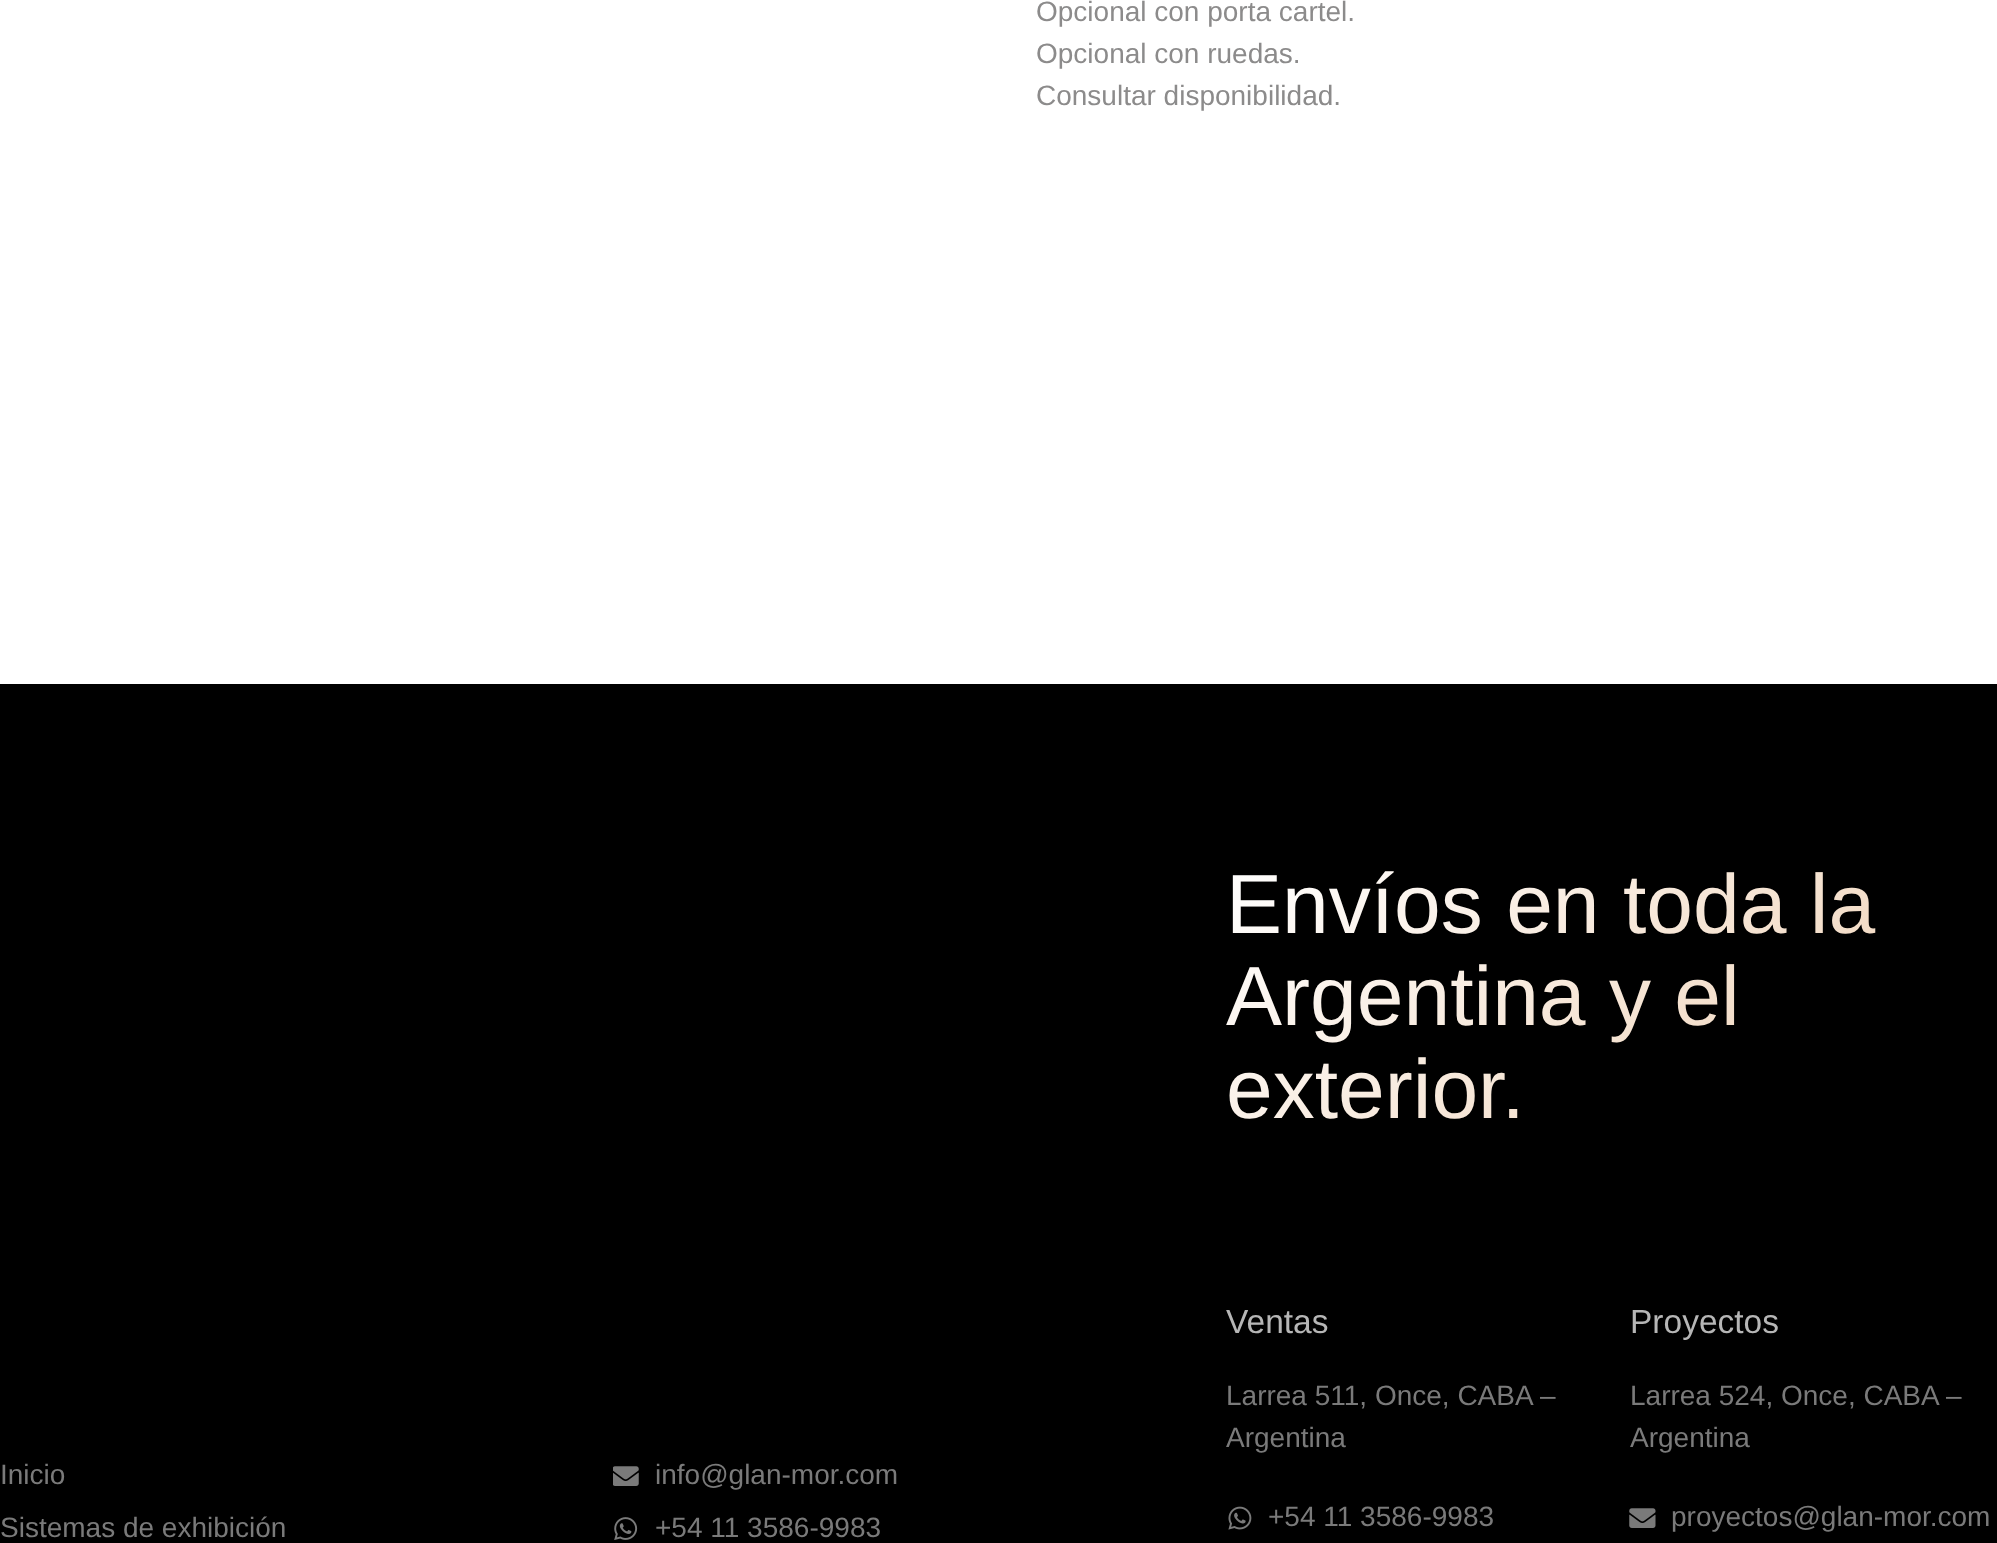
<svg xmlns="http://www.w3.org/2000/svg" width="1997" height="1543">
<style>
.a{font:28px Liberation Sans;fill:#8c8b8b}
.b{font:28px Liberation Sans;fill:#7a7a7a}
.c{font:84px Liberation Sans;fill:url(#g1)}
.d{font:33.5px Liberation Sans;fill:#b6b6b6}
</style>
<defs>
<linearGradient id="g1" gradientUnits="userSpaceOnUse" x1="1363" y1="731" x2="1861" y2="1265"><stop offset="0" stop-color="#fff"/><stop offset="1" stop-color="#edccad"/></linearGradient>
</defs>
<rect width="100%" height="100%" fill="#fff"/>
<path fill="#000" d="M0 684h1997v859H0z"/>
<image href="1.png" x="613" y="1466" width="26" height="20"/>
<image href="2.png" x="614" y="1517" width="24" height="23"/>
<image href="3.png" x="1228" y="1506" width="24" height="24"/>
<image href="4.png" x="1629" y="1508" width="27" height="20"/>
<text class="a" x="1036" y="21">Opcional con porta cartel.</text>
<text class="a" x="1036" y="63">Opcional con ruedas.</text>
<text class="a" x="1036" y="105">Consultar disponibilidad.</text>
<text class="b" x="0" y="1484">Inicio</text>
<text class="b" x="0" y="1537">Sistemas de exhibición</text>
<text class="b" x="655" y="1484">info@glan-mor.com</text>
<text class="b" x="655" y="1537">+54 11 3586-9983</text>
<text class="c" x="1226" y="933">Envíos en toda la</text>
<text class="c" x="1226" y="1025">Argentina y el</text>
<text class="c" x="1226" y="1118">exterior.</text>
<text class="d" x="1226" y="1333">Ventas</text>
<text class="b" x="1226" y="1405">Larrea 511, Once, CABA –</text>
<text class="b" x="1226" y="1447">Argentina</text>
<text class="b" x="1268" y="1526">+54 11 3586-9983</text>
<text class="d" x="1630" y="1333">Proyectos</text>
<text class="b" x="1630" y="1405">Larrea 524, Once, CABA –</text>
<text class="b" x="1630" y="1447">Argentina</text>
<text class="b" x="1671" y="1526">proyectos@glan-mor.com</text>
</svg>
